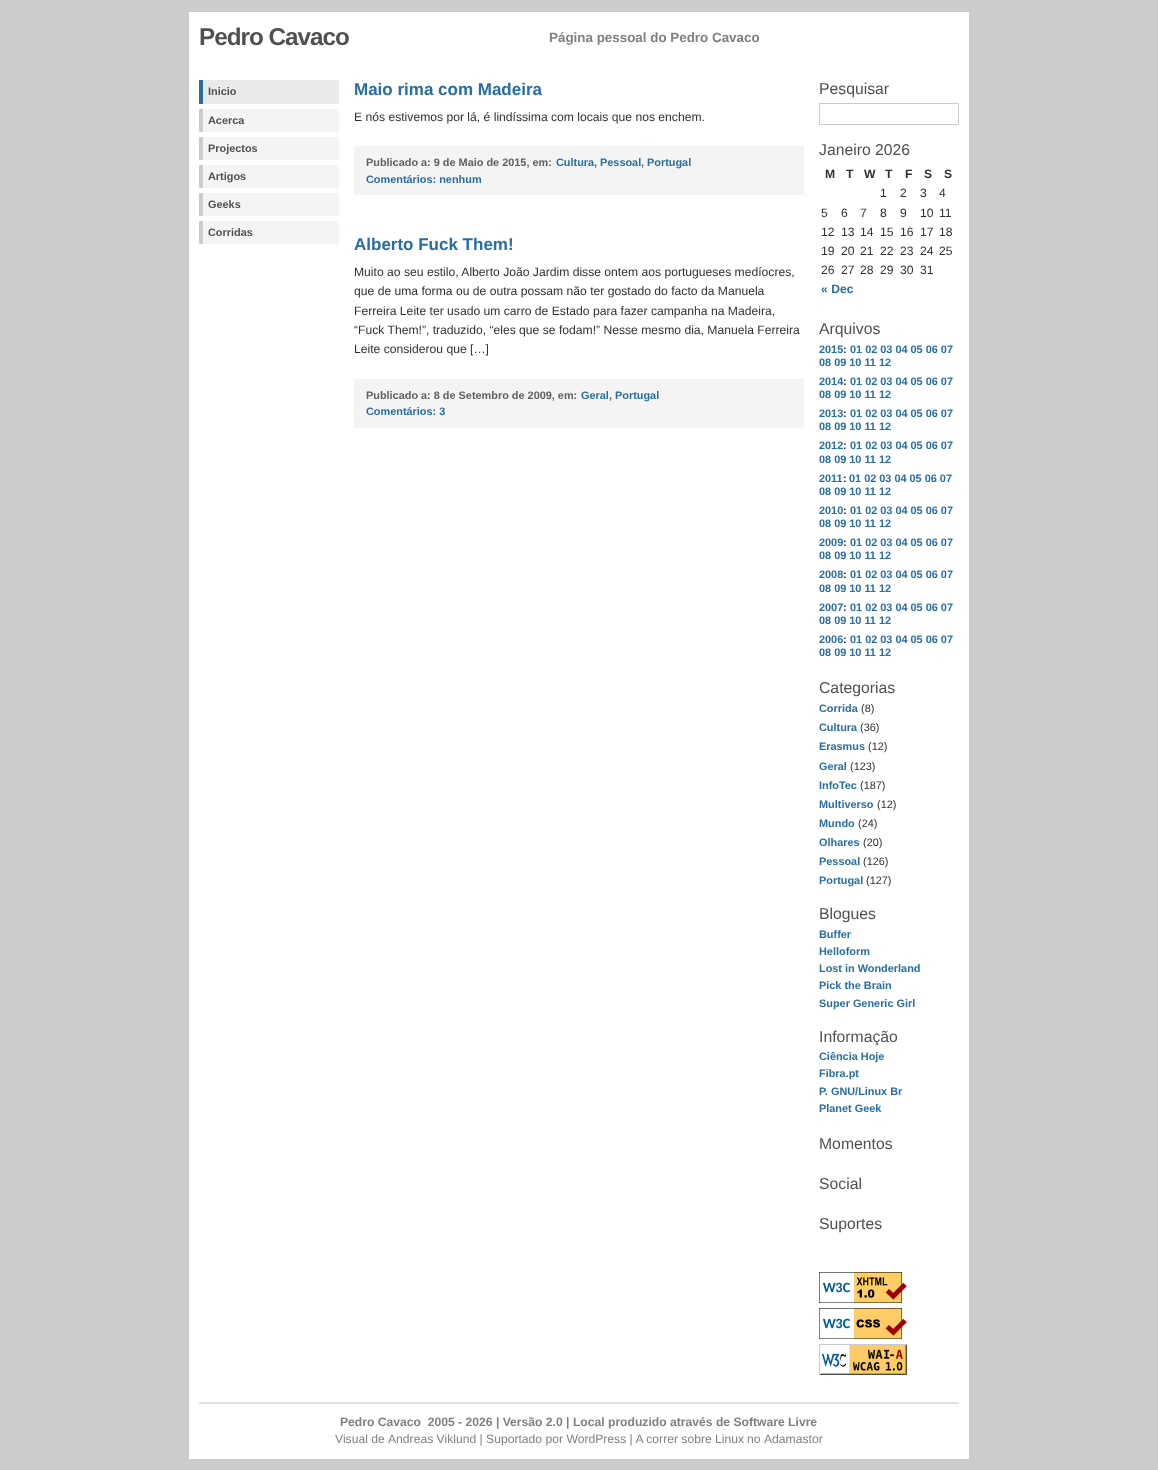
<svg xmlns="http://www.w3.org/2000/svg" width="1158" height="1470">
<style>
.a{font:bold 24.25px Liberation Sans;letter-spacing:-1px;fill:#505050}
.b{font:bold 13.4px Liberation Sans;fill:#808080}
.c{font:bold 10.9px Liberation Sans;fill:#505050}
.d{font:bold 17px Liberation Sans;fill:#286ea0}
.e{font:12.15px Liberation Sans;fill:#303030}
.f{font:bold 10.9px Liberation Sans;fill:#606060}
.g{font:bold 10.9px Liberation Sans;fill:#286ea0}
.h{font:15.75px Liberation Sans;fill:#505050}
.i{font:bold 12.15px Liberation Sans;fill:#303030}
.j{font:bold 12.15px Liberation Sans;fill:#286ea0}
.k{font:bold 10.9px Liberation Sans;fill:#303030}
.l{font:10.9px Liberation Sans;fill:#303030}
.m{font:bold 12.15px Liberation Sans;fill:#808080}
.n{font:12.15px Liberation Sans;fill:#808080}
</style>
<rect width="100%" height="100%" fill="#ccc"/>
<path fill="#fff" d="M189 12h780v1447H189z"/>
<path fill="#eaeaea" d="M203 80h136v24H203z"/>
<path fill="#286ea0" d="M199 80h4v24H199z"/>
<path fill="#f4f4f4" d="M203 109h136v23H203z"/>
<path fill="#ccc" d="M199 109h4v23H199z"/>
<path fill="#f4f4f4" d="M203 137h136v23H203z"/>
<path fill="#ccc" d="M199 137h4v23H199z"/>
<path fill="#f4f4f4" d="M203 165h136v23H203z"/>
<path fill="#ccc" d="M199 165h4v23H199z"/>
<path fill="#f4f4f4" d="M203 193h136v23H203z"/>
<path fill="#ccc" d="M199 193h4v23H199z"/>
<path fill="#f4f4f4" d="M203 221h136v23H203z"/>
<path fill="#ccc" d="M199 221h4v23H199z"/>
<path fill="#f4f4f4" d="M354 146h450v49H354z"/>
<path fill="#f4f4f4" d="M354 379h450v49H354z"/>
<path fill="none" stroke="#ccc" d="M819.5 103.5h139v21H819.5z"/>
<image href="1.png" x="819" y="1272" width="88" height="31"/>
<image href="2.png" x="819" y="1308" width="88" height="31"/>
<image href="3.png" x="819" y="1344" width="88" height="31"/>
<path fill="#e0e0e0" d="M199 1402h760v2H199z"/>
<text class="a" x="199" y="45">Pedro Cavaco</text>
<text class="b" x="549" y="42">Página pessoal do Pedro Cavaco</text>
<text class="c" x="208" y="95">Inicio</text>
<text class="c" x="208" y="124">Acerca</text>
<text class="c" x="208" y="152">Projectos</text>
<text class="c" x="208" y="180">Artigos</text>
<text class="c" x="208" y="208">Geeks</text>
<text class="c" x="208" y="236">Corridas</text>
<text class="d" x="354" y="95">Maio rima com Madeira</text>
<text class="e" x="354" y="121">E nós estivemos por lá, é lindíssima com locais que nos enchem.</text>
<text class="f" x="366" y="166">Publicado a: 9 de Maio de 2015, em:</text>
<text class="g" x="556" y="166">Cultura</text>
<text class="f" x="594" y="166">,</text>
<text class="g" x="600" y="166">Pessoal</text>
<text class="f" x="641" y="166">,</text>
<text class="g" x="647" y="166">Portugal</text>
<text class="g" x="366" y="183">Comentários: nenhum</text>
<text class="d" x="354" y="250">Alberto Fuck Them!</text>
<text class="e" x="354" y="276">Muito ao seu estilo, Alberto João Jardim disse ontem aos portugueses medíocres,</text>
<text class="e" x="354" y="295">que de uma forma ou de outra possam não ter gostado do facto da Manuela</text>
<text class="e" x="354" y="315">Ferreira Leite ter usado um carro de Estado para fazer campanha na Madeira,</text>
<text class="e" x="354" y="334">“Fuck Them!”, traduzido, “eles que se fodam!” Nesse mesmo dia, Manuela Ferreira</text>
<text class="e" x="354" y="353">Leite considerou que […]</text>
<text class="f" x="366" y="399">Publicado a: 8 de Setembro de 2009, em:</text>
<text class="g" x="581" y="399">Geral</text>
<text class="f" x="609" y="399">,</text>
<text class="g" x="615" y="399">Portugal</text>
<text class="g" x="366" y="415">Comentários: 3</text>
<text class="h" x="819" y="94">Pesquisar</text>
<text class="h" x="819" y="155">Janeiro 2026</text>
<text class="i" x="825" y="178">M</text>
<text class="i" x="846" y="178">T</text>
<text class="i" x="864" y="178">W</text>
<text class="i" x="885" y="178">T</text>
<text class="i" x="905" y="178">F</text>
<text class="i" x="924" y="178">S</text>
<text class="i" x="944" y="178">S</text>
<text class="e" x="880" y="197">1</text>
<text class="e" x="900" y="197">2</text>
<text class="e" x="920" y="197">3</text>
<text class="e" x="939" y="197">4</text>
<text class="e" x="821" y="217">5</text>
<text class="e" x="841" y="217">6</text>
<text class="e" x="860" y="217">7</text>
<text class="e" x="880" y="217">8</text>
<text class="e" x="900" y="217">9</text>
<text class="e" x="920" y="217">10</text>
<text class="e" x="939" y="217">11</text>
<text class="e" x="821" y="236">12</text>
<text class="e" x="841" y="236">13</text>
<text class="e" x="860" y="236">14</text>
<text class="e" x="880" y="236">15</text>
<text class="e" x="900" y="236">16</text>
<text class="e" x="920" y="236">17</text>
<text class="e" x="939" y="236">18</text>
<text class="e" x="821" y="255">19</text>
<text class="e" x="841" y="255">20</text>
<text class="e" x="860" y="255">21</text>
<text class="e" x="880" y="255">22</text>
<text class="e" x="900" y="255">23</text>
<text class="e" x="920" y="255">24</text>
<text class="e" x="939" y="255">25</text>
<text class="e" x="821" y="274">26</text>
<text class="e" x="841" y="274">27</text>
<text class="e" x="860" y="274">28</text>
<text class="e" x="880" y="274">29</text>
<text class="e" x="900" y="274">30</text>
<text class="e" x="920" y="274">31</text>
<text class="j" x="821" y="293">« Dec</text>
<text class="h" x="819" y="334">Arquivos</text>
<text class="g" x="819" y="353">2015</text>
<text class="k" x="843" y="353">:</text>
<text class="g" x="850" y="353">01 02 03 04 05 06 07</text>
<text class="g" x="819" y="366">08 09 10 11 12</text>
<text class="g" x="819" y="385">2014</text>
<text class="k" x="843" y="385">:</text>
<text class="g" x="850" y="385">01 02 03 04 05 06 07</text>
<text class="g" x="819" y="398">08 09 10 11 12</text>
<text class="g" x="819" y="417">2013</text>
<text class="k" x="843" y="417">:</text>
<text class="g" x="850" y="417">01 02 03 04 05 06 07</text>
<text class="g" x="819" y="430">08 09 10 11 12</text>
<text class="g" x="819" y="449">2012</text>
<text class="k" x="843" y="449">:</text>
<text class="g" x="850" y="449">01 02 03 04 05 06 07</text>
<text class="g" x="819" y="463">08 09 10 11 12</text>
<text class="g" x="819" y="482">2011</text>
<text class="k" x="843" y="482">:</text>
<text class="g" x="849" y="482">01 02 03 04 05 06 07</text>
<text class="g" x="819" y="495">08 09 10 11 12</text>
<text class="g" x="819" y="514">2010</text>
<text class="k" x="843" y="514">:</text>
<text class="g" x="850" y="514">01 02 03 04 05 06 07</text>
<text class="g" x="819" y="527">08 09 10 11 12</text>
<text class="g" x="819" y="546">2009</text>
<text class="k" x="843" y="546">:</text>
<text class="g" x="850" y="546">01 02 03 04 05 06 07</text>
<text class="g" x="819" y="559">08 09 10 11 12</text>
<text class="g" x="819" y="578">2008</text>
<text class="k" x="843" y="578">:</text>
<text class="g" x="850" y="578">01 02 03 04 05 06 07</text>
<text class="g" x="819" y="592">08 09 10 11 12</text>
<text class="g" x="819" y="611">2007</text>
<text class="k" x="843" y="611">:</text>
<text class="g" x="850" y="611">01 02 03 04 05 06 07</text>
<text class="g" x="819" y="624">08 09 10 11 12</text>
<text class="g" x="819" y="643">2006</text>
<text class="k" x="843" y="643">:</text>
<text class="g" x="850" y="643">01 02 03 04 05 06 07</text>
<text class="g" x="819" y="656">08 09 10 11 12</text>
<text class="h" x="819" y="693">Categorias</text>
<text class="g" x="819" y="712">Corrida</text>
<text class="l" x="861" y="712">(8)</text>
<text class="g" x="819" y="731">Cultura</text>
<text class="l" x="860" y="731">(36)</text>
<text class="g" x="819" y="750">Erasmus</text>
<text class="l" x="868" y="750">(12)</text>
<text class="g" x="819" y="770">Geral</text>
<text class="l" x="850" y="770">(123)</text>
<text class="g" x="819" y="789">InfoTec</text>
<text class="l" x="860" y="789">(187)</text>
<text class="g" x="819" y="808">Multiverso</text>
<text class="l" x="877" y="808">(12)</text>
<text class="g" x="819" y="827">Mundo</text>
<text class="l" x="858" y="827">(24)</text>
<text class="g" x="819" y="846">Olhares</text>
<text class="l" x="863" y="846">(20)</text>
<text class="g" x="819" y="865">Pessoal</text>
<text class="l" x="863" y="865">(126)</text>
<text class="g" x="819" y="884">Portugal</text>
<text class="l" x="866" y="884">(127)</text>
<text class="h" x="819" y="919">Blogues</text>
<text class="g" x="819" y="938">Buffer</text>
<text class="g" x="819" y="955">Helloform</text>
<text class="g" x="819" y="972">Lost in Wonderland</text>
<text class="g" x="819" y="989">Pick the Brain</text>
<text class="g" x="819" y="1007">Super Generic Girl</text>
<text class="h" x="819" y="1042">Informação</text>
<text class="g" x="819" y="1060">Ciência Hoje</text>
<text class="g" x="819" y="1077">Fibra.pt</text>
<text class="g" x="819" y="1095">P. GNU/Linux Br</text>
<text class="g" x="819" y="1112">Planet Geek</text>
<text class="h" x="819" y="1149">Momentos</text>
<text class="h" x="819" y="1189">Social</text>
<text class="h" x="819" y="1229">Suportes</text>
<text class="m" xml:space="preserve" x="340" y="1426">Pedro Cavaco  2005 - 2026 | Versão 2.0 | Local produzido através de Software Livre</text>
<text class="n" x="335" y="1443">Visual de</text>
<text class="n" x="388" y="1443">Andreas Viklund | Suportado por WordPress | A correr sobre Linux</text>
<text class="n" x="747" y="1443">no</text>
<text class="n" x="764" y="1443">Adamastor</text>
</svg>
